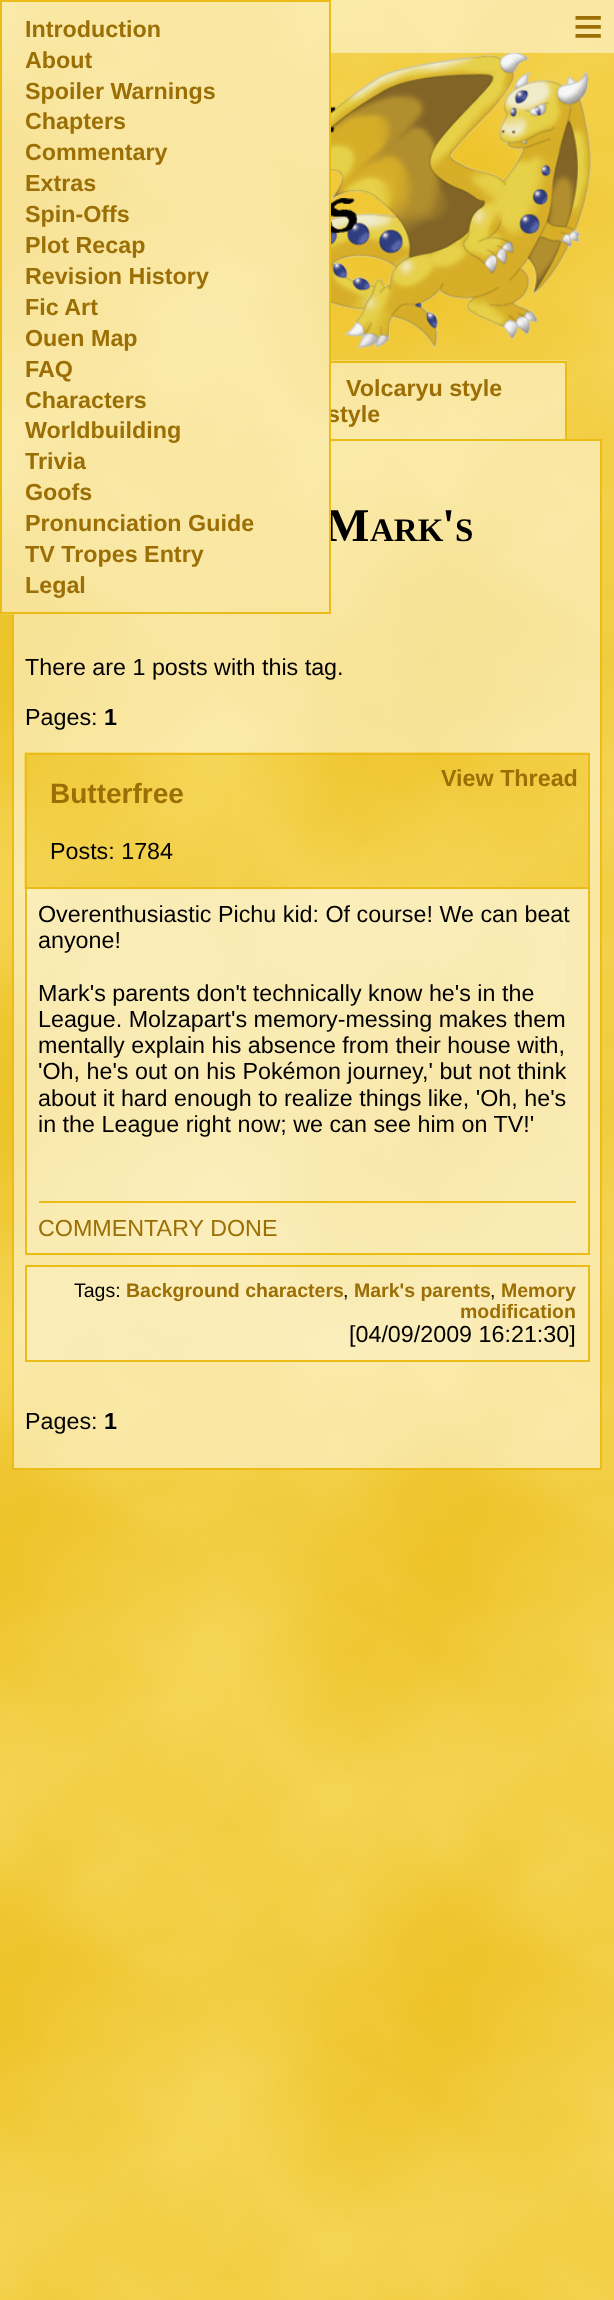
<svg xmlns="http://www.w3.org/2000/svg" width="614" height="2300">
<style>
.a{font:bold 23.3px Liberation Sans;fill:#9b6f05}
.b{font:52px Liberation Sans;fill:#9b6f05}
.c{font:bold 47px Liberation Serif;fill:#000}
.d{font:bold 33px Liberation Serif;fill:#000}
.e{font:23.3px Liberation Sans;fill:#000}
.f{font:bold 23.3px Liberation Sans;fill:#000}
.g{font:23.3px Liberation Sans;fill:#9b6f05}
.h{font:19.5px Liberation Sans;fill:#000}
.i{font:bold 19.5px Liberation Sans;fill:#9b6f05}
.j{font:bold 28px Liberation Sans;fill:#9b6f05}
</style>
<rect width="100%" height="100%" fill="#fff"/>
<image href="1.png" x="0" y="53" width="614" height="2247"/>
<path fill="#f8e39a" d="M331 52h283v1H331z"/>
<image href="2.png" x="331" y="0" width="231" height="53"/>
<image href="4.png" x="331" y="360" width="236" height="79"/>
<path fill="none" stroke="#ebbc18" stroke-width="2" d="M48 362h518v78H48z"/>
<image href="5.png" x="562" y="0" width="52" height="53"/>
<image href="6.png" x="14" y="441" width="586" height="1027"/>
<path fill="none" stroke="#ebbc18" stroke-width="2" d="M13 440h588v1029H13z"/>
<path fill="#faebb4" d="M566 889h22v364H566z"/>
<image href="7.png" x="24" y="889" width="542" height="366"/>
<path fill="#ebbc18" d="M588 889h2v366H588z"/>
<path fill="#ebbc18" d="M25 1253h565v2H25z"/>
<path fill="#ebbc18" d="M25 889h2v366H25z"/>
<path fill="#ebbc18" d="M39 1201h537v2H39z"/>
<path fill="#faebb4" d="M473 1267h115v93H473z"/>
<image href="8.png" x="24" y="1265" width="449" height="97"/>
<path fill="none" stroke="#ebbc18" stroke-width="2" d="M26 1266h563v95H26z"/>
<image href="9.png" x="24" y="752" width="566" height="137"/>
<path fill="none" stroke="#ebbc18" stroke-width="2" d="M26 754h563v134H26z"/>
<image href="10.png" x="331" y="53" width="260" height="296"/>
<text class="a" x="346" y="396">Volcaryu style</text>
<text class="a" x="327" y="422">style</text>
<text class="b" x="573" y="44">≡</text>
<text class="c" x="325" y="541">M</text>
<image href="3.png" x="0" y="2" width="331" height="613"/>
<path fill="none" stroke="#ebbc18" stroke-width="2" d="M1 1h329v612H1z"/>
<text class="a" x="25" y="593">Legal</text>
<text class="a" x="25" y="562">TV Tropes Entry</text>
<text class="a" x="25" y="531">Pronunciation Guide</text>
<text class="a" x="25" y="500">Goofs</text>
<text class="a" x="25" y="469">Trivia</text>
<text class="a" x="25" y="438">Worldbuilding</text>
<text class="a" x="25" y="408">Characters</text>
<text class="a" x="25" y="377">FAQ</text>
<text class="a" x="25" y="346">Ouen Map</text>
<text class="a" x="25" y="315">Fic Art</text>
<text class="a" x="25" y="284">Revision History</text>
<text class="a" x="25" y="253">Plot Recap</text>
<text class="a" x="25" y="222">Spin-Offs</text>
<text class="a" x="25" y="191">Extras</text>
<text class="a" x="25" y="160">Commentary</text>
<text class="a" x="25" y="129">Chapters</text>
<text class="a" x="25" y="99">Spoiler Warnings</text>
<text class="a" x="25" y="68">About</text>
<text class="a" x="25" y="37">Introduction</text>
<text class="c" x="442" y="541">'</text>
<text class="d" x="370" y="541">ARK</text>
<text class="d" x="455" y="541">S</text>
<text class="e" x="25" y="675">There are 1 posts with this tag.</text>
<text class="e" x="25" y="725">Pages:</text>
<text class="f" x="104" y="725">1</text>
<text class="a" x="441" y="786">View Thread</text>
<text class="e" x="38" y="922">Overenthusiastic Pichu kid: Of course! We can beat</text>
<text class="e" x="38" y="948">anyone!</text>
<text class="e" x="38" y="1001">Mark's parents don't technically know he's in the</text>
<text class="e" x="38" y="1027">League. Molzapart's memory-messing makes them</text>
<text class="e" x="38" y="1053">mentally explain his absence from their house with,</text>
<text class="e" x="38" y="1079">'Oh, he's out on his Pokémon journey,' but not think</text>
<text class="e" x="38" y="1106">about it hard enough to realize things like, 'Oh, he's</text>
<text class="e" x="38" y="1132">in the League right now; we can see him on TV!'</text>
<text class="g" x="38" y="1236">COMMENTARY DONE</text>
<text class="h" x="74" y="1297">Tags:</text>
<text class="i" x="126" y="1297">Background characters</text>
<text class="h" x="343" y="1297">,</text>
<text class="i" x="354" y="1297">Mark's parents</text>
<text class="h" x="490" y="1297">,</text>
<text class="i" x="501" y="1297">Memory</text>
<text class="i" x="460" y="1318">modification</text>
<text class="e" x="349" y="1342">[04/09/2009 16:21:30]</text>
<text class="j" x="50" y="803">Butterfree</text>
<text class="e" x="50" y="859">Posts: 1784</text>
<text class="e" x="25" y="1429">Pages:</text>
<text class="f" x="104" y="1429">1</text>
</svg>
